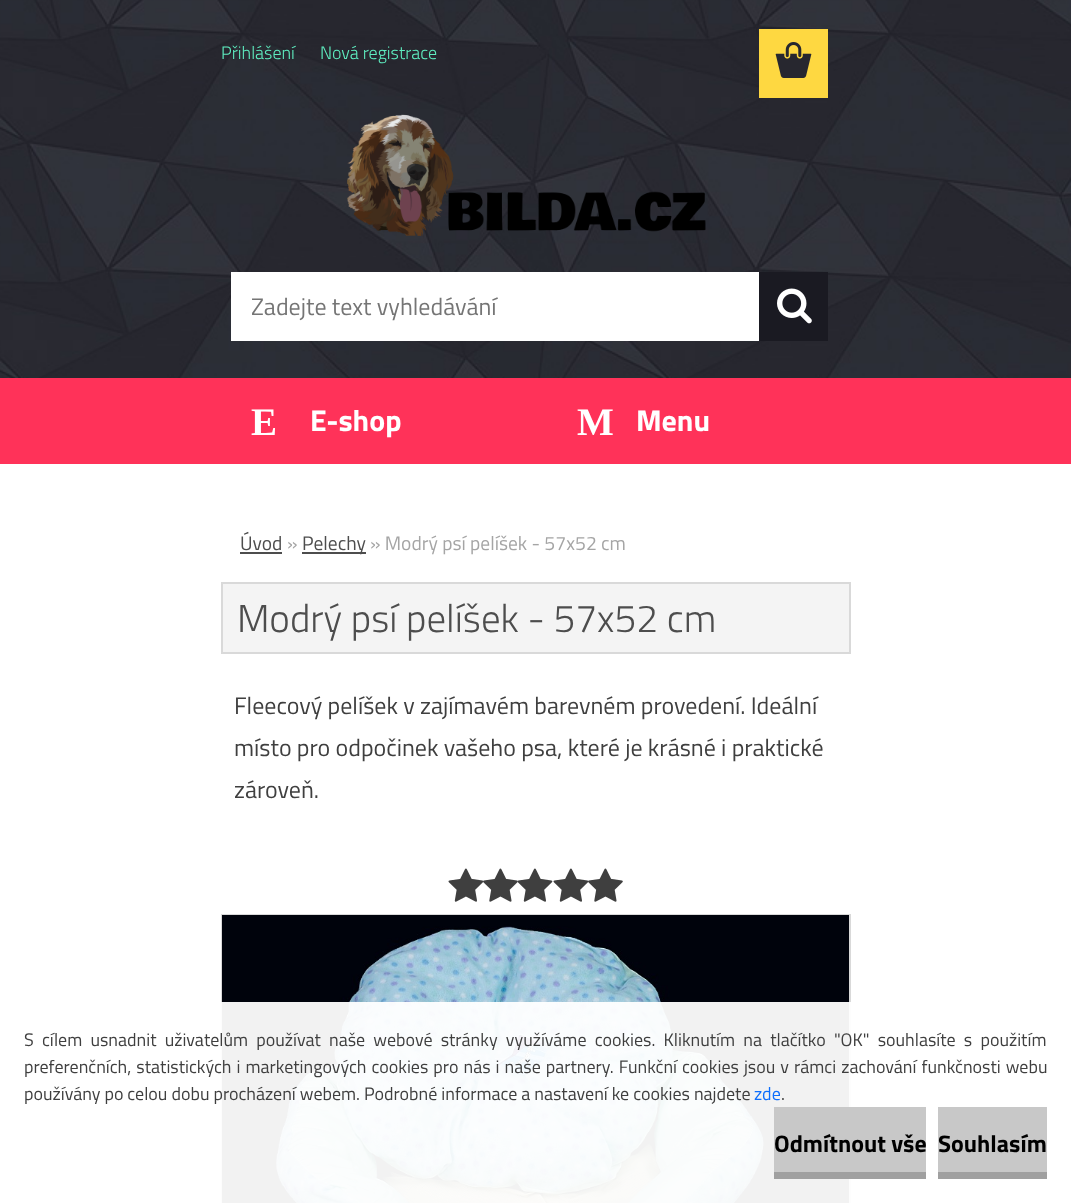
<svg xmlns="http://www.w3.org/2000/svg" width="1071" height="1203">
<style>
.a{font:300 18px Titillium Web;fill:#5eecbf}
.b{font:bold 39px Liberation Serif;fill:#fff}
.c{font:bold 30px Titillium Web;fill:#fff}
.d{font:19.5px Titillium Web;fill:#4d4d4d}
.e{font:19.5px Titillium Web;fill:#a5a5a5}
.f{font:300 39px Titillium Web;fill:#4d4d4d}
.g{font:24px Titillium Web;fill:#3f3f3f}
.h{font:24px Titillium Web;fill:#757575}
.i{font:18px Titillium Web;fill:#3f3f3f}
.j{font:18px Titillium Web;fill:#0d6efd}
.k{font:bold 24px Titillium Web;fill:#000}
</style>
<rect width="100%" height="100%" fill="#fff"/>
<image href="6.png" x="0" y="0" width="1071" height="378"/>
<path fill="#fed841" d="M759 29h69v69H759z"/>
<image href="1.png" x="775" y="42" width="37" height="36"/>
<path fill="#4d4d4d" d="M240 552h42v2H240z"/>
<path fill="#4d4d4d" d="M302 552h64v2H302z"/>
<path fill="#f4f4f4" stroke="#d9d9d9" stroke-width="2" d="M222 583h628v70H222z"/>
<image href="2.png" x="448" y="868" width="36" height="34"/>
<image href="3.png" x="483" y="868" width="35" height="34"/>
<image href="4.png" x="517" y="868" width="36" height="34"/>
<image href="2.png" x="553" y="868" width="36" height="34"/>
<image href="3.png" x="588" y="868" width="35" height="34"/>
<path fill="none" stroke="#d9d9d9" stroke-width="2" d="M222 915h628v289H222z"/>
<image href="5.png" x="222" y="915" width="627" height="288"/>
<path fill="#ff3259" d="M0 378h1071v86H0z"/>
<image href="7.png" x="347" y="114" width="359" height="122"/>
<path fill="#fff" d="M231 272h528v69H231z"/>
<path fill="#1a1a22" d="M759 272h69v69H759z"/>
<image href="8.png" x="777" y="288" width="35" height="36"/>
<path fill="#fffffff2" d="M221 1002h630v201H221z"/>
<path fill="#c8c8c8" d="M774 1107h152v65H774z"/>
<path fill="#a0a0a0" d="M774 1172h152v7H774z"/>
<path fill="#c8c8c8" d="M938 1107h109v65H938z"/>
<path fill="#a0a0a0" d="M938 1172h109v7H938z"/>
<text class="a" x="221" y="59">Přihlášení</text>
<text class="a" x="320" y="59">Nová registrace</text>
<text class="b" x="251" y="435">E</text>
<text class="c" x="310" y="431">E-shop</text>
<text class="b" x="577" y="435">M</text>
<text class="c" x="636" y="431">Menu</text>
<text class="d" x="240" y="550">Úvod</text>
<text class="e" x="287" y="550">»</text>
<text class="d" x="302" y="550">Pelechy</text>
<text class="e" x="370" y="550">» Modrý psí pelíšek - 57x52 cm</text>
<text class="f" x="237" y="632">Modrý psí pelíšek - 57x52 cm</text>
<text class="g" x="234" y="714">Fleecový pelíšek v zajímavém barevném provedení. Ideální</text>
<text class="g" x="234" y="756">místo pro odpočinek vašeho psa, které je krásné i praktické</text>
<text class="g" x="234" y="798">zároveň.</text>
<text class="h" x="251" y="315">Zadejte text vyhledávání</text>
<text class="i" x="24" y="1046" word-spacing="4.25">S cílem usnadnit uživatelům používat naše webové stránky využíváme cookies. Kliknutím na tlačítko "OK" souhlasíte s použitím</text>
<text class="i" x="24" y="1073" word-spacing="1.1">preferenčních, statistických i marketingových cookies pro nás i naše partnery. Funkční cookies jsou v rámci zachování funkčnosti webu</text>
<text class="i" x="24" y="1100">používány po celou dobu procházení webem. Podrobné informace a nastavení ke cookies najdete</text>
<text class="j" x="754" y="1100">zde</text>
<text class="i" x="781" y="1100">.</text>
<text class="k" x="774" y="1152">Odmítnout vše</text>
<text class="k" x="938" y="1152">Souhlasím</text>
</svg>
